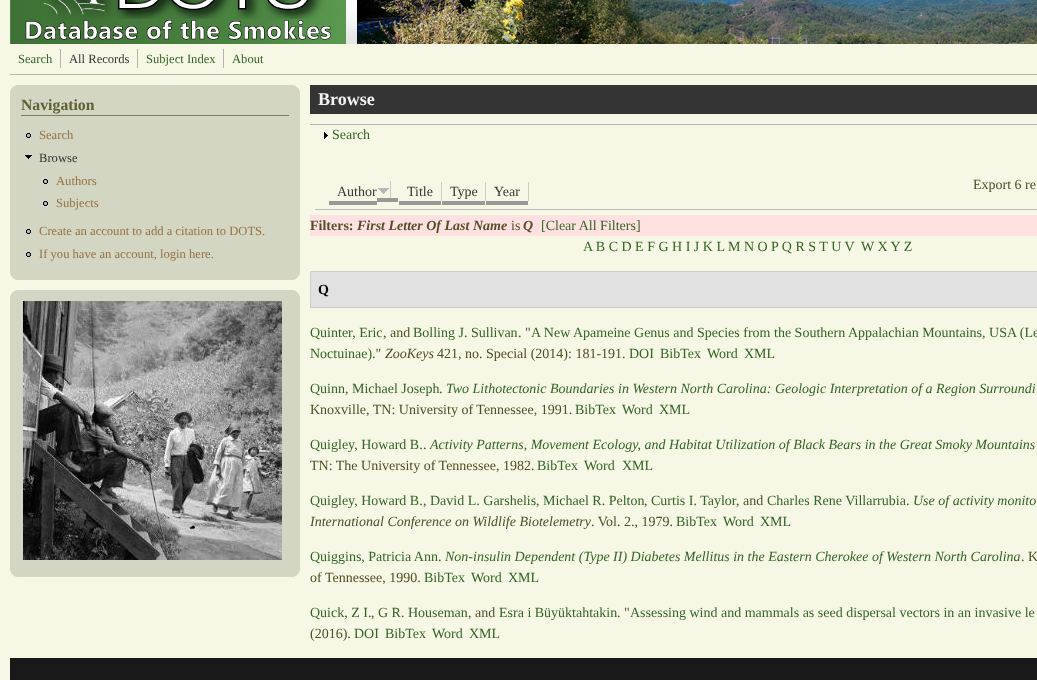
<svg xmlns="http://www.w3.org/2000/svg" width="1037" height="680">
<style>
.a{font:12.6px Liberation Serif;fill:#336525}
.b{font:12.6px Liberation Serif;fill:#363533}
.c{font:bold 15.75px Liberation Serif;fill:#606034}
.d{font:12.6px Liberation Serif;fill:#967144}
.e{font:bold 18px Liberation Serif;fill:#f1f1f1}
.f{font:14px Liberation Serif;fill:#336525}
.g{font:14px Liberation Serif;fill:#363533}
.h{font:14px Liberation Serif;fill:#524e27}
.i{font:bold 14px Liberation Serif;fill:#524e27}
.j{font:italic bold 14px Liberation Serif;fill:#524e27}
.k{font:bold 14px Liberation Serif;fill:#000}
.l{font:italic 14px Liberation Serif;fill:#524e27}
.m{font:italic 14px Liberation Serif;fill:#336525}
</style>
<rect width="100%" height="100%" fill="#f6f7e5"/>
<image href="1.png" x="10" y="0" width="1027" height="44"/>
<image href="2.png" x="25" y="0" width="306" height="40"/>
<path fill="#b4b4b4" d="M10 74h1027v1H10z"/>
<path fill="#b4b4b4" d="M60 49h1v19H60z"/>
<path fill="#b4b4b4" d="M137 49h1v19H137z"/>
<path fill="#b4b4b4" d="M223 49h1v19H223z"/>
<rect fill="#d3d6c3" stroke="#d3d6c3" x="10.5" y="85.5" width="289" height="194" rx="7.5"/>
<path fill="#817b68" d="M21 115h268v1H21z"/>
<image href="3.png" x="26" y="133" width="5" height="5"/>
<image href="4.png" x="25" y="155" width="7" height="4"/>
<image href="3.png" x="43" y="179" width="5" height="5"/>
<image href="3.png" x="43" y="201" width="5" height="5"/>
<image href="3.png" x="26" y="229" width="5" height="5"/>
<image href="3.png" x="26" y="252" width="5" height="5"/>
<rect fill="#d3d6c3" stroke="#d3d6c3" x="10.5" y="290.5" width="289" height="286" rx="7.5"/>
<image href="5.png" x="23" y="301" width="259" height="259"/>
<path fill="#343434" d="M310 85h727v29H310z"/>
<path fill="#b4b4b4" d="M310 124h727v1H310z"/>
<image href="6.png" x="324" y="132" width="4" height="7"/>
<path fill="#bbb" d="M315 209h722v1H315z"/>
<path fill="#ccc" d="M390 181h1v17H390z"/>
<path fill="#999" d="M329 201h48v4H329z"/>
<path fill="#999" d="M377 198h21v4H377z"/>
<image href="7.png" x="378" y="188" width="11" height="6"/>
<path fill="#ccc" d="M441 182h1v19H441z"/>
<path fill="#999" d="M399 201h42v4H399z"/>
<path fill="#ccc" d="M485 182h1v19H485z"/>
<path fill="#999" d="M442 201h43v4H442z"/>
<path fill="#ccc" d="M528 182h1v19H528z"/>
<path fill="#999" d="M486 201h42v4H486z"/>
<path fill="#ffe1e1" d="M310 215h727v21H310z"/>
<path fill="#e1e1e1" stroke="#ccc" d="M310.5 271.5h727v36H310.5z"/>
<path fill="#191919" d="M10 658h1027v22H10z"/>
<text class="a" x="18" y="63">Search</text>
<text class="b" x="69" y="63">All Records</text>
<text class="a" x="146" y="63">Subject Index</text>
<text class="a" x="232" y="63">About</text>
<text class="c" x="21" y="110">Navigation</text>
<text class="d" x="39" y="139">Search</text>
<text class="b" x="39" y="162">Browse</text>
<text class="d" x="56" y="185">Authors</text>
<text class="d" x="56" y="207">Subjects</text>
<text class="d" x="39" y="235">Create an account to add a citation to DOTS.</text>
<text class="d" x="39" y="258">If you have an account, login here.</text>
<text class="e" x="318" y="105">Browse</text>
<text class="f" x="332" y="139">Search</text>
<text class="g" x="337" y="196">Author</text>
<text class="g" x="407" y="196">Title</text>
<text class="g" x="450" y="196">Type</text>
<text class="g" x="494" y="196">Year</text>
<text class="h" x="973" y="189">Export 6 re</text>
<text class="i" x="310" y="230">Filters:</text>
<text class="j" x="357" y="230">First Letter Of Last Name</text>
<text class="h" x="511" y="230">is</text>
<text class="j" x="523" y="230">Q</text>
<text class="f" x="541" y="230">[Clear All Filters]</text>
<text class="f" x="583" y="251">A B C D E F G H I J K L M N O P Q R S T U V</text>
<text class="f" x="861" y="251">W X Y Z</text>
<text class="k" x="318" y="294">Q</text>
<text class="f" x="310" y="337">Quinter, Eric</text>
<text class="h" x="383" y="337">, and</text>
<text class="f" x="413" y="337">Bolling J. Sullivan</text>
<text class="h" x="518" y="337">. "</text>
<text class="f" x="531" y="337">A New Apameine Genus and Species from the Southern Appalachian Mountains, USA (Le</text>
<text class="f" x="310" y="358">Noctuinae)</text>
<text class="h" x="372" y="358">."</text>
<text class="l" x="385" y="358">ZooKeys</text>
<text class="h" x="437" y="358">421, no. Special (2014): 181-191.</text>
<text class="f" x="629" y="358">DOI</text>
<text class="f" x="660" y="358">BibTex</text>
<text class="f" x="707" y="358">Word</text>
<text class="f" x="744" y="358">XML</text>
<text class="f" x="310" y="393">Quinn, Michael Joseph</text>
<text class="h" x="439" y="393">.</text>
<text class="m" x="446" y="393">Two Lithotectonic Boundaries in Western North Carolina: Geologic Interpretation of a Region Surroundi</text>
<text class="h" x="310" y="414">Knoxville, TN: University of Tennessee, 1991.</text>
<text class="f" x="575" y="414">BibTex</text>
<text class="f" x="622" y="414">Word</text>
<text class="f" x="659" y="414">XML</text>
<text class="f" x="310" y="449">Quigley, Howard B.</text>
<text class="h" x="423" y="449">.</text>
<text class="m" x="430" y="449">Activity Patterns, Movement Ecology, and Habitat Utilization of Black Bears in the Great Smoky Mountains</text>
<text class="h" x="310" y="470">TN: The University of Tennessee, 1982.</text>
<text class="f" x="537" y="470">BibTex</text>
<text class="f" x="584" y="470">Word</text>
<text class="f" x="622" y="470">XML</text>
<text class="f" x="310" y="505">Quigley, Howard B.</text>
<text class="h" x="423" y="505">,</text>
<text class="f" x="430" y="505">David L. Garshelis</text>
<text class="h" x="536" y="505">,</text>
<text class="f" x="543" y="505">Michael R. Pelton</text>
<text class="h" x="644" y="505">,</text>
<text class="f" x="651" y="505">Curtis I. Taylor</text>
<text class="h" x="736" y="505">, and</text>
<text class="f" x="767" y="505">Charles Rene Villarrubia</text>
<text class="h" x="906" y="505">.</text>
<text class="m" x="913" y="505">Use of activity monito</text>
<text class="l" x="310" y="526">International Conference on Wildlife Biotelemetry</text>
<text class="h" x="591" y="526">. Vol. 2., 1979.</text>
<text class="f" x="676" y="526">BibTex</text>
<text class="f" x="723" y="526">Word</text>
<text class="f" x="760" y="526">XML</text>
<text class="f" x="310" y="561">Quiggins, Patricia Ann</text>
<text class="h" x="438" y="561">.</text>
<text class="m" x="445" y="561">Non-insulin Dependent (Type II) Diabetes Mellitus in the Eastern Cherokee of Western North Carolina</text>
<text class="h" x="1021" y="561">. K</text>
<text class="h" x="310" y="582">of Tennessee, 1990.</text>
<text class="f" x="424" y="582">BibTex</text>
<text class="f" x="471" y="582">Word</text>
<text class="f" x="508" y="582">XML</text>
<text class="f" x="310" y="617">Quick, Z I.</text>
<text class="h" x="371" y="617">,</text>
<text class="f" x="378" y="617">G R. Houseman</text>
<text class="h" x="468" y="617">, and</text>
<text class="f" x="499" y="617">Esra i Büyüktahtakin</text>
<text class="h" x="617" y="617">. "</text>
<text class="f" x="630" y="617">Assessing wind and mammals as seed dispersal vectors in an invasive le</text>
<text class="h" x="310" y="638">(2016).</text>
<text class="f" x="354" y="638">DOI</text>
<text class="f" x="385" y="638">BibTex</text>
<text class="f" x="432" y="638">Word</text>
<text class="f" x="469" y="638">XML</text>
</svg>
